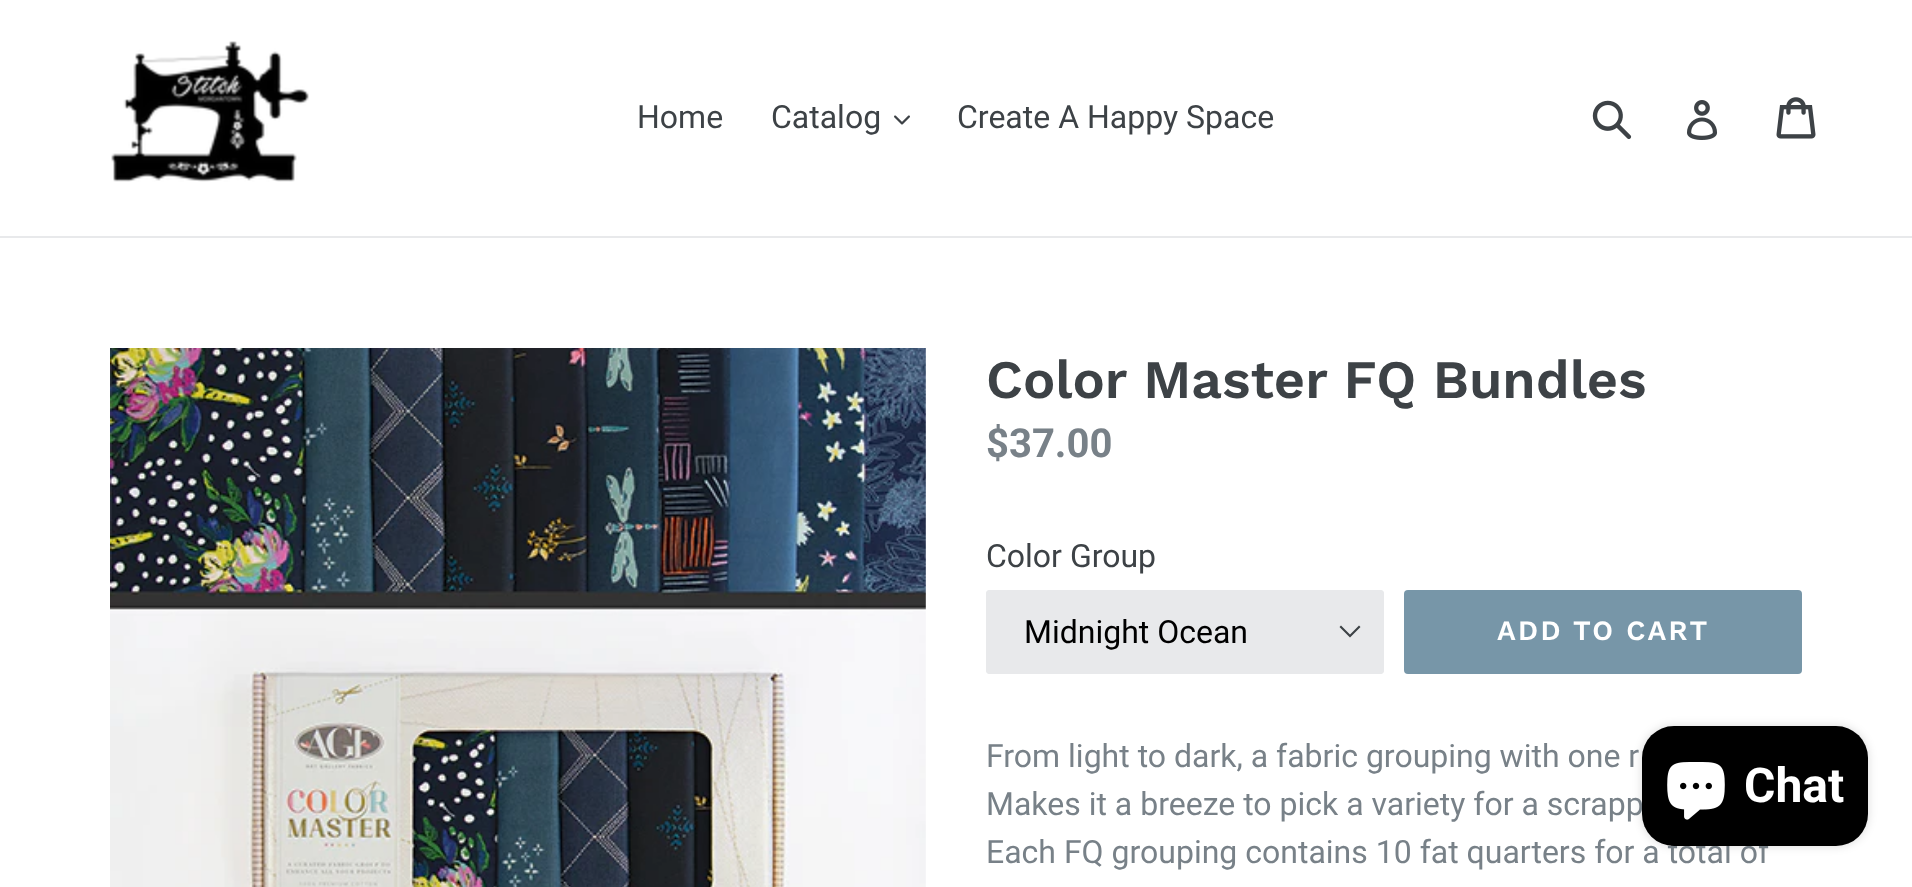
<svg xmlns="http://www.w3.org/2000/svg" width="1912" height="887">
<style>
.a{font:32px Roboto;fill:#3d4246}
.b{font:600 54px Work Sans;fill:#3d4246}
.c{font:bold 40px Roboto;fill:#788188}
.d{font:32px Roboto;fill:#000}
.e{font:600 28px Work Sans;letter-spacing:2.25px;fill:#fff}
.f{font:32px Roboto;fill:#788188}
.g{font:bold 48px Roboto;fill:#fff}
</style>
<rect width="100%" height="100%" fill="#fff"/>
<path fill="#e8e9eb" d="M0 236h1912v2H0z"/>
<image href="1.png" x="111" y="41" width="198" height="141"/>
<image href="2.png" x="894" y="115" width="16" height="10"/>
<image href="3.png" x="1592" y="100" width="40" height="40"/>
<image href="4.png" x="1687" y="100" width="31" height="40"/>
<image href="5.png" x="1776" y="97" width="40" height="42"/>
<image href="6.png" x="110" y="348" width="816" height="539"/>
<rect fill="#e8e9eb" x="986" y="590" width="398" height="84" rx="4"/>
<path fill="#3d4246" d="M1350 637.5l-10.5-10.5l1.5-1.5l9 9l9-9l1.5 1.5z"/>
<rect fill="none" stroke="#e8e9eb" stroke-width="2" x="987" y="591" width="396" height="82" rx="3"/>
<rect fill="#7796a8" x="1404" y="590" width="398" height="84" rx="4"/>
<rect fill="#00000026" filter="blur(5px)" x="1642" y="726" width="226" height="120" rx="32"/>
<text class="a" x="637" y="128">Home</text>
<text class="a" x="771" y="128">Catalog</text>
<text class="a" x="957" y="128">Create A Happy Space</text>
<text class="b" x="986" y="398">Color Master FQ Bundles</text>
<text class="c" x="986" y="457">$37.00</text>
<text class="a" x="986" y="567">Color Group</text>
<text class="d" x="1024" y="643">Midnight Ocean</text>
<text class="e" x="1497" y="640">ADD TO CART</text>
<text class="f" x="986" y="767">From light to dark, a fabric grouping with one r</text>
<text class="f" x="986" y="815">Makes it a breeze to pick a variety for a scrapp</text>
<text class="f" x="986" y="863">Each FQ grouping contains 10 fat quarters for a total of</text>
<rect fill="#000" x="1642" y="726" width="226" height="120" rx="32"/>
<image href="7.png" x="1667" y="762" width="58" height="58"/>
<text class="g" x="1744" y="802">Chat</text>
</svg>
